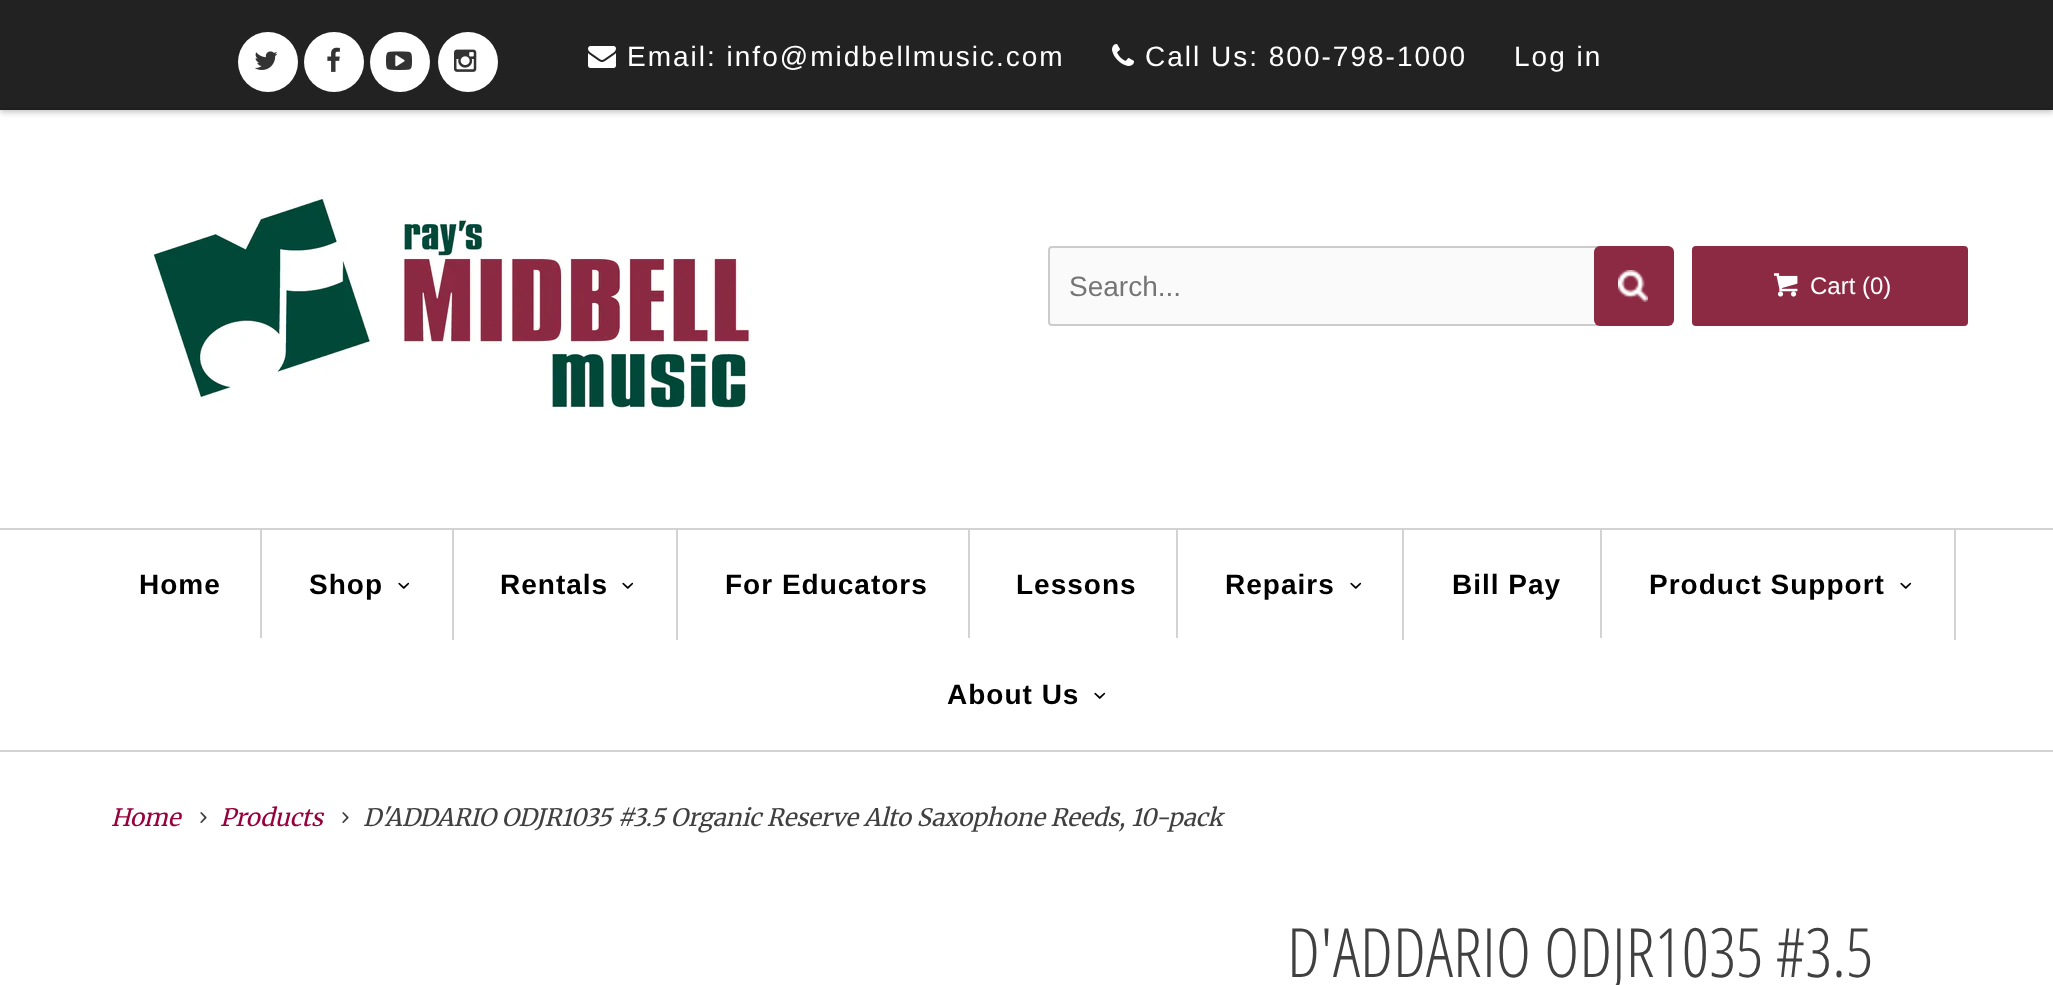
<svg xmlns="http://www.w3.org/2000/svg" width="2053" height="985">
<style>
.a{font:28px Liberation Sans;letter-spacing:2px;fill:#fff}
.b{font:28px Liberation Sans;fill:#757575}
.c{font:24px Liberation Sans;fill:#fff}
.d{font:bold 28px Liberation Sans;letter-spacing:1px;fill:#000}
.e{font:italic 24px Merriweather;fill:#96013e}
.f{font:italic 24px Merriweather;fill:#404040}
.g{font:300 68px Open Sans Condensed;fill:#404040}
</style>
<rect width="100%" height="100%" fill="#fff"/>
<path fill="#00000040" filter="blur(3px)" d="M0 2h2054v110H0z"/>
<path fill="#222" d="M0 0h2053v108H0z"/>
<path fill="#1f1f1f" d="M0 108h2053v2H0z"/>
<circle fill="#fff" cx="268" cy="62" r="30"/>
<image href="1.png" x="254" y="51" width="24" height="19"/>
<circle fill="#fff" cx="334" cy="62" r="30"/>
<image href="2.png" x="327" y="47" width="13" height="25"/>
<circle fill="#fff" cx="400" cy="62" r="30"/>
<image href="3.png" x="386" y="51" width="26" height="19"/>
<circle fill="#fff" cx="468" cy="62" r="30"/>
<image href="4.png" x="454" y="49" width="23" height="23"/>
<image href="5.png" x="588" y="46" width="28" height="22"/>
<image href="6.png" x="1112" y="44" width="22" height="22"/>
<image href="7.png" x="153" y="196" width="599" height="213"/>
<rect fill="#fafafa" stroke="#ccc" stroke-width="2" x="1049" y="247" width="576" height="78" rx="3"/>
<rect fill="#8c2943" x="1594" y="246" width="80" height="80" rx="6"/>
<image href="8.png" x="1618" y="270" width="30" height="32"/>
<rect fill="#8c2943" x="1692" y="246" width="276" height="80" rx="4"/>
<image href="9.png" x="1774" y="273" width="24" height="24"/>
<path fill="#d3d3d3" d="M0 528h2053v2H0z"/>
<path fill="#d3d3d3" d="M0 750h2053v2H0z"/>
<path fill="#d3d3d3" d="M260 530h2v108H260z"/>
<path fill="#d3d3d3" d="M452 530h2v110H452z"/>
<image href="10.png" x="398" y="582" width="12" height="7"/>
<path fill="#d3d3d3" d="M676 530h2v110H676z"/>
<image href="10.png" x="622" y="582" width="12" height="7"/>
<path fill="#d3d3d3" d="M968 530h2v108H968z"/>
<path fill="#d3d3d3" d="M1176 530h2v108H1176z"/>
<path fill="#d3d3d3" d="M1402 530h2v110H1402z"/>
<image href="10.png" x="1350" y="582" width="12" height="7"/>
<path fill="#d3d3d3" d="M1600 530h2v108H1600z"/>
<path fill="#d3d3d3" d="M1954 530h2v110H1954z"/>
<image href="10.png" x="1900" y="582" width="12" height="7"/>
<image href="10.png" x="1094" y="692" width="12" height="7"/>
<image href="11.png" x="200" y="812" width="7" height="12"/>
<image href="11.png" x="342" y="812" width="7" height="12"/>
<text class="a" x="627" y="66">Email: info@midbellmusic.com</text>
<text class="a" x="1145" y="66">Call Us: 800-798-1000</text>
<text class="a" x="1514" y="66">Log in</text>
<text class="b" x="1069" y="296">Search...</text>
<text class="c" x="1810" y="294">Cart (0)</text>
<text class="d" x="139" y="594">Home</text>
<text class="d" x="309" y="594">Shop</text>
<text class="d" x="500" y="594">Rentals</text>
<text class="d" x="725" y="594">For Educators</text>
<text class="d" x="1016" y="594">Lessons</text>
<text class="d" x="1225" y="594">Repairs</text>
<text class="d" x="1452" y="594">Bill Pay</text>
<text class="d" x="1649" y="594">Product Support</text>
<text class="d" x="947" y="704">About Us</text>
<text class="e" x="111" y="826">Home</text>
<text class="e" x="220" y="826">Products</text>
<text class="f" x="363" y="826">D'ADDARIO ODJR1035 #3.5 Organic Reserve Alto Saxophone Reeds, 10-pack</text>
<text class="g" x="1287" y="977">D'ADDARIO ODJR1035 #3.5</text>
</svg>
